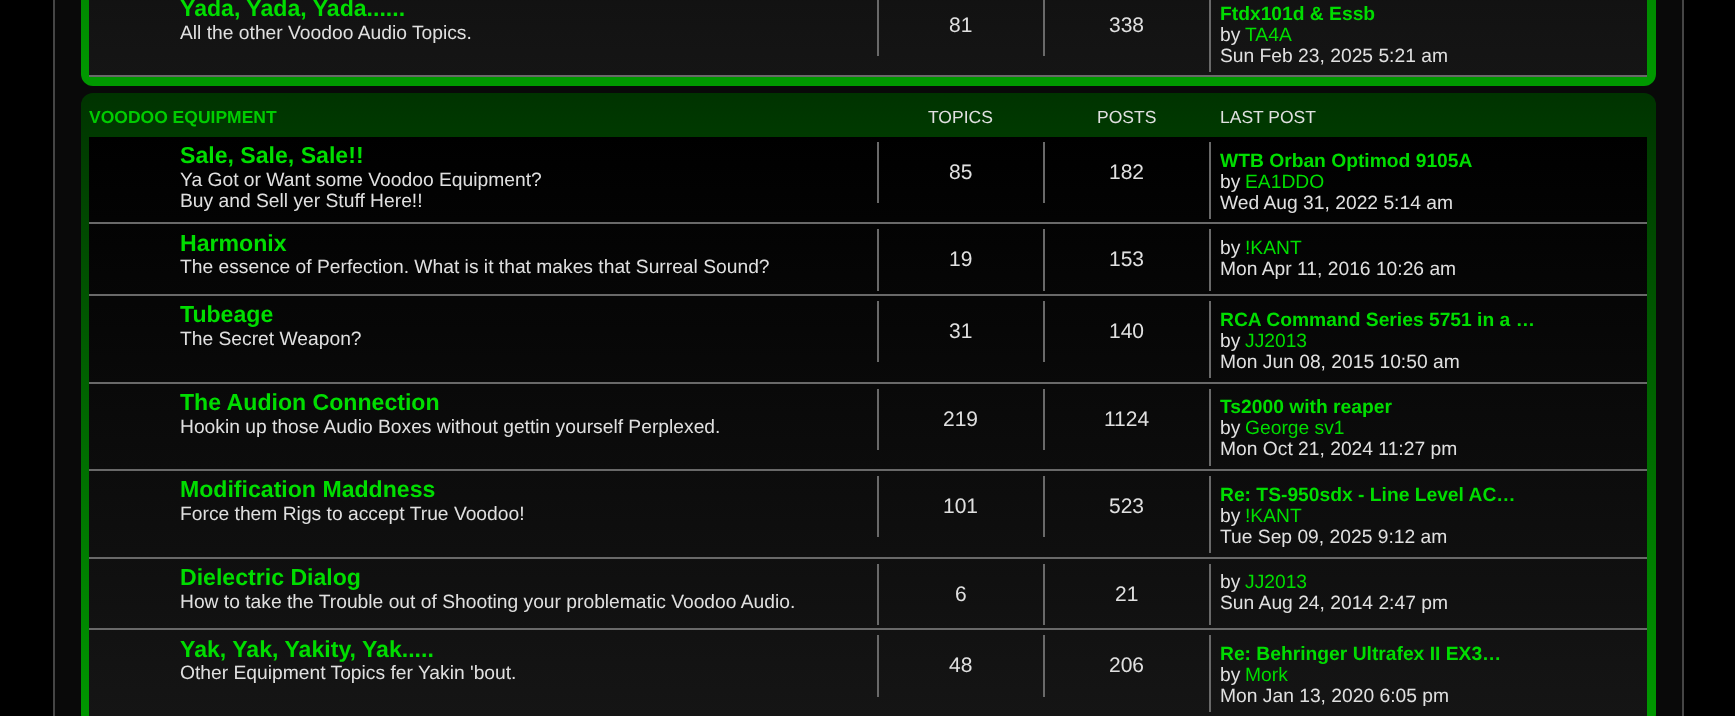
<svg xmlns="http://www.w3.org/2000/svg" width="1735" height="716">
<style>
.a{font:bold 23.1px Liberation Sans;fill:#0d0}
.b{font:19.25px Liberation Sans;fill:#e0e0e0}
.c{font:21px Liberation Sans;fill:#e0e0e0}
.d{font:bold 19.25px Liberation Sans;fill:#0d0}
.e{font:19.25px Liberation Sans;fill:#0d0}
.f{font:bold 17.5px Liberation Sans;fill:#0c0}
.g{font:17.5px Liberation Sans;fill:#e0e0e0}
</style>
<defs>
<linearGradient id="g1" gradientUnits="userSpaceOnUse" x1="868" y1="-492" x2="868" y2="86"><stop offset="0" stop-color="#030"/><stop offset="1" stop-color="#090"/></linearGradient>
<linearGradient id="g2" gradientUnits="userSpaceOnUse" x1="868" y1="-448" x2="868" y2="77"><stop offset="0" stop-color="#000"/><stop offset="1" stop-color="#151515"/></linearGradient>
<linearGradient id="g3" gradientUnits="userSpaceOnUse" x1="868" y1="93" x2="868" y2="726"><stop offset="0" stop-color="#030"/><stop offset="1" stop-color="#090"/></linearGradient>
<linearGradient id="g4" gradientUnits="userSpaceOnUse" x1="868" y1="136" x2="868" y2="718"><stop offset="0" stop-color="#000"/><stop offset="1" stop-color="#151515"/></linearGradient>
</defs>
<rect width="100%" height="100%" fill="#000"/>
<path fill="#090909" stroke="#454545" stroke-width="2" d="M54 -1h1629v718H54z"/>
<rect fill="url(#g1)" x="81" y="-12" width="1575" height="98" rx="12"/>
<path fill="url(#g2)" d="M89 0h1558v75H89z"/>
<path fill="#696969" d="M89 75h1558v2H89z"/>
<path fill="#696969" d="M877 0h2v56H877z"/>
<path fill="#696969" d="M1043 0h2v56H1043z"/>
<path fill="#696969" d="M1209 0h2v72H1209z"/>
<rect fill="url(#g3)" x="81" y="93" width="1575" height="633" rx="12"/>
<path fill="url(#g4)" d="M89 137h1558v579H89z"/>
<path fill="#696969" d="M89 222h1558v2H89z"/>
<path fill="#696969" d="M877 142h2v61H877z"/>
<path fill="#696969" d="M1043 142h2v61H1043z"/>
<path fill="#696969" d="M1209 142h2v77H1209z"/>
<path fill="#696969" d="M89 294h1558v2H89z"/>
<path fill="#696969" d="M877 229h2v62H877z"/>
<path fill="#696969" d="M1043 229h2v62H1043z"/>
<path fill="#696969" d="M1209 229h2v62H1209z"/>
<path fill="#696969" d="M89 382h1558v2H89z"/>
<path fill="#696969" d="M877 301h2v61H877z"/>
<path fill="#696969" d="M1043 301h2v61H1043z"/>
<path fill="#696969" d="M1209 301h2v77H1209z"/>
<path fill="#696969" d="M89 469h1558v2H89z"/>
<path fill="#696969" d="M877 389h2v61H877z"/>
<path fill="#696969" d="M1043 389h2v61H1043z"/>
<path fill="#696969" d="M1209 389h2v77H1209z"/>
<path fill="#696969" d="M89 557h1558v2H89z"/>
<path fill="#696969" d="M877 476h2v61H877z"/>
<path fill="#696969" d="M1043 476h2v61H1043z"/>
<path fill="#696969" d="M1209 476h2v77H1209z"/>
<path fill="#696969" d="M89 628h1558v2H89z"/>
<path fill="#696969" d="M877 564h2v61H877z"/>
<path fill="#696969" d="M1043 564h2v61H1043z"/>
<path fill="#696969" d="M1209 564h2v61H1209z"/>
<path fill="#696969" d="M877 635h2v62H877z"/>
<path fill="#696969" d="M1043 635h2v62H1043z"/>
<path fill="#696969" d="M1209 635h2v77H1209z"/>
<text class="a" x="180" y="16">Yada, Yada, Yada......</text>
<text class="b" x="180" y="39">All the other Voodoo Audio Topics.</text>
<text class="c" x="949" y="32">81</text>
<text class="c" x="1109" y="32">338</text>
<text class="d" x="1220" y="20">Ftdx101d &amp; Essb</text>
<text class="b" x="1220" y="41">by</text>
<text class="e" x="1245" y="41">TA4A</text>
<text class="b" x="1220" y="62">Sun Feb 23, 2025 5:21 am</text>
<text class="f" x="89" y="123">VOODOO EQUIPMENT</text>
<text class="g" x="928" y="123">TOPICS</text>
<text class="g" x="1097" y="123">POSTS</text>
<text class="g" x="1220" y="123">LAST POST</text>
<text class="a" x="180" y="163">Sale, Sale, Sale!!</text>
<text class="b" x="180" y="186">Ya Got or Want some Voodoo Equipment?</text>
<text class="b" x="180" y="207">Buy and Sell yer Stuff Here!!</text>
<text class="c" x="949" y="179">85</text>
<text class="c" x="1109" y="179">182</text>
<text class="d" x="1220" y="167">WTB Orban Optimod 9105A</text>
<text class="b" x="1220" y="188">by</text>
<text class="e" x="1245" y="188">EA1DDO</text>
<text class="b" x="1220" y="209">Wed Aug 31, 2022 5:14 am</text>
<text class="a" x="180" y="251">Harmonix</text>
<text class="b" x="180" y="273">The essence of Perfection. What is it that makes that Surreal Sound?</text>
<text class="c" x="949" y="266">19</text>
<text class="c" x="1109" y="266">153</text>
<text class="b" x="1220" y="254">by</text>
<text class="e" x="1245" y="254">!KANT</text>
<text class="b" x="1220" y="275">Mon Apr 11, 2016 10:26 am</text>
<text class="a" x="180" y="322">Tubeage</text>
<text class="b" x="180" y="345">The Secret Weapon?</text>
<text class="c" x="949" y="338">31</text>
<text class="c" x="1109" y="338">140</text>
<text class="d" x="1220" y="326">RCA Command Series 5751 in a …</text>
<text class="b" x="1220" y="347">by</text>
<text class="e" x="1245" y="347">JJ2013</text>
<text class="b" x="1220" y="368">Mon Jun 08, 2015 10:50 am</text>
<text class="a" x="180" y="410">The Audion Connection</text>
<text class="b" x="180" y="433">Hookin up those Audio Boxes without gettin yourself Perplexed.</text>
<text class="c" x="943" y="426">219</text>
<text class="c" x="1104" y="426">1124</text>
<text class="d" x="1220" y="413">Ts2000 with reaper</text>
<text class="b" x="1220" y="434">by</text>
<text class="e" x="1245" y="434">George sv1</text>
<text class="b" x="1220" y="455">Mon Oct 21, 2024 11:27 pm</text>
<text class="a" x="180" y="497">Modification Maddness</text>
<text class="b" x="180" y="520">Force them Rigs to accept True Voodoo!</text>
<text class="c" x="943" y="513">101</text>
<text class="c" x="1109" y="513">523</text>
<text class="d" x="1220" y="501">Re: TS-950sdx - Line Level AC…</text>
<text class="b" x="1220" y="522">by</text>
<text class="e" x="1245" y="522">!KANT</text>
<text class="b" x="1220" y="543">Tue Sep 09, 2025 9:12 am</text>
<text class="a" x="180" y="585">Dielectric Dialog</text>
<text class="b" x="180" y="608">How to take the Trouble out of Shooting your problematic Voodoo Audio.</text>
<text class="c" x="955" y="601">6</text>
<text class="c" x="1115" y="601">21</text>
<text class="b" x="1220" y="588">by</text>
<text class="e" x="1245" y="588">JJ2013</text>
<text class="b" x="1220" y="609">Sun Aug 24, 2014 2:47 pm</text>
<text class="a" x="180" y="657">Yak, Yak, Yakity, Yak.....</text>
<text class="b" x="180" y="679">Other Equipment Topics fer Yakin 'bout.</text>
<text class="c" x="949" y="672">48</text>
<text class="c" x="1109" y="672">206</text>
<text class="d" x="1220" y="660">Re: Behringer Ultrafex II EX3…</text>
<text class="b" x="1220" y="681">by</text>
<text class="e" x="1245" y="681">Mork</text>
<text class="b" x="1220" y="702">Mon Jan 13, 2020 6:05 pm</text>
</svg>
